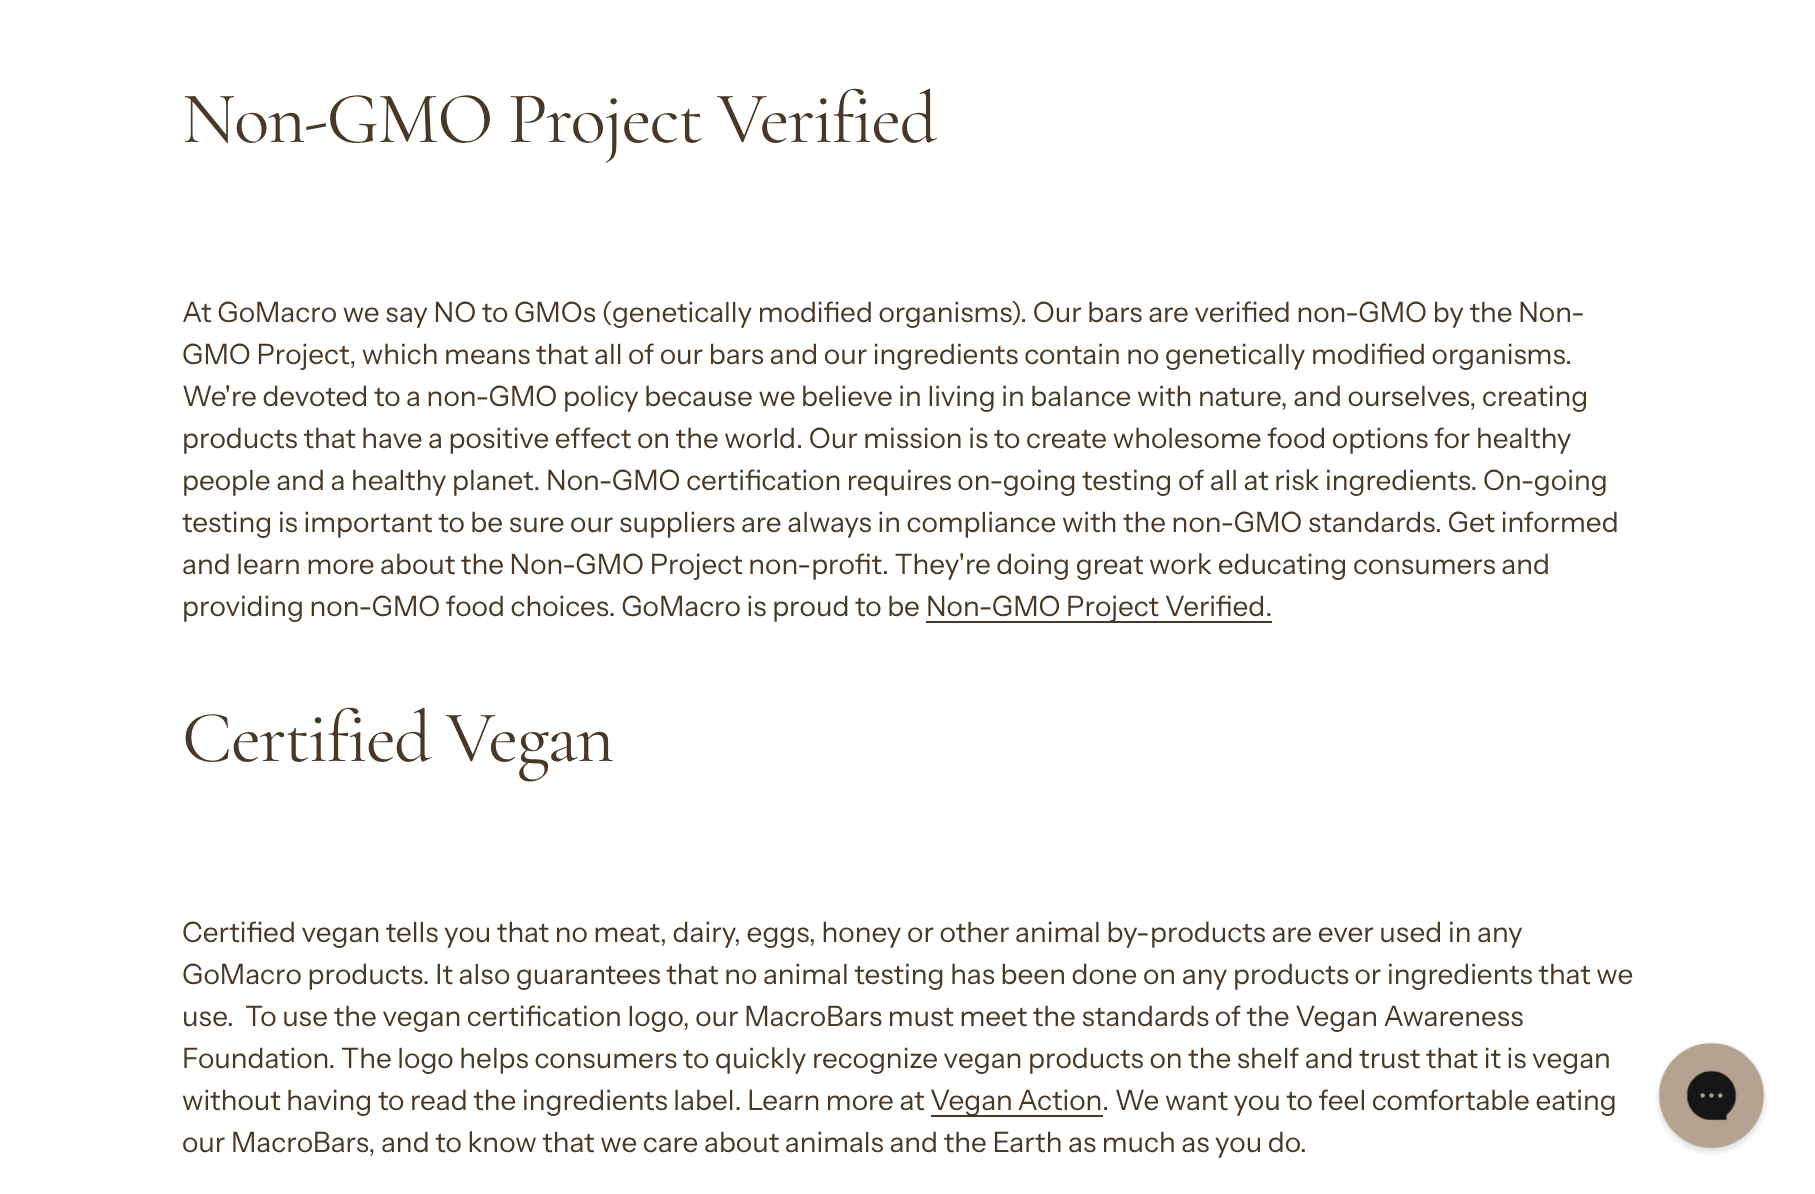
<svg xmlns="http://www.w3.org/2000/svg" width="1815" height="1194">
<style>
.a{font:73.5px Cormorant Garamond;letter-spacing:-1.5px;fill:#493728}
.b{font:28px Instrument Sans;fill:#493728}
</style>
<rect width="100%" height="100%" fill="#fff"/>
<path fill="#493728" d="M926 621h346v2H926z"/>
<path fill="#493728" d="M931 1115h172v2H931z"/>
<image href="1.png" x="1655" y="1042" width="113" height="113"/>
<text class="a" x="182" y="142">Non-GMO Project Verified</text>
<text class="b" x="182" y="322">At GoMacro we say NO to GMOs (genetically modified organisms). Our bars are verified non-GMO by the Non-</text>
<text class="b" x="182" y="364">GMO Project, which means that all of our bars and our ingredients contain no genetically modified organisms.</text>
<text class="b" x="182" y="406">We're devoted to a non-GMO policy because we believe in living in balance with nature, and ourselves, creating</text>
<text class="b" x="182" y="448">products that have a positive effect on the world. Our mission is to create wholesome food options for healthy</text>
<text class="b" x="182" y="490">people and a healthy planet. Non-GMO certification requires on-going testing of all at risk ingredients. On-going</text>
<text class="b" x="182" y="532">testing is important to be sure our suppliers are always in compliance with the non-GMO standards. Get informed</text>
<text class="b" x="182" y="574">and learn more about the Non-GMO Project non-profit. They're doing great work educating consumers and</text>
<text class="b" x="182" y="616">providing non-GMO food choices. GoMacro is proud to be</text>
<text class="b" x="926" y="616">Non-GMO Project Verified.</text>
<text class="a" x="182" y="761">Certified Vegan</text>
<text class="b" x="182" y="942">Certified vegan tells you that no meat, dairy, eggs, honey or other animal by-products are ever used in any</text>
<text class="b" x="182" y="984">GoMacro products. It also guarantees that no animal testing has been done on any products or ingredients that we</text>
<text class="b" xml:space="preserve" x="182" y="1026">use.  To use the vegan certification logo, our MacroBars must meet the standards of the Vegan Awareness</text>
<text class="b" x="182" y="1068">Foundation. The logo helps consumers to quickly recognize vegan products on the shelf and trust that it is vegan</text>
<text class="b" x="182" y="1110">without having to read the ingredients label. Learn more at</text>
<text class="b" x="930" y="1110" word-spacing="-1">Vegan Action</text>
<text class="b" x="1102" y="1110">. We want you to feel comfortable eating</text>
<text class="b" x="182" y="1152">our MacroBars, and to know that we care about animals and the Earth as much as you do.</text>
</svg>
